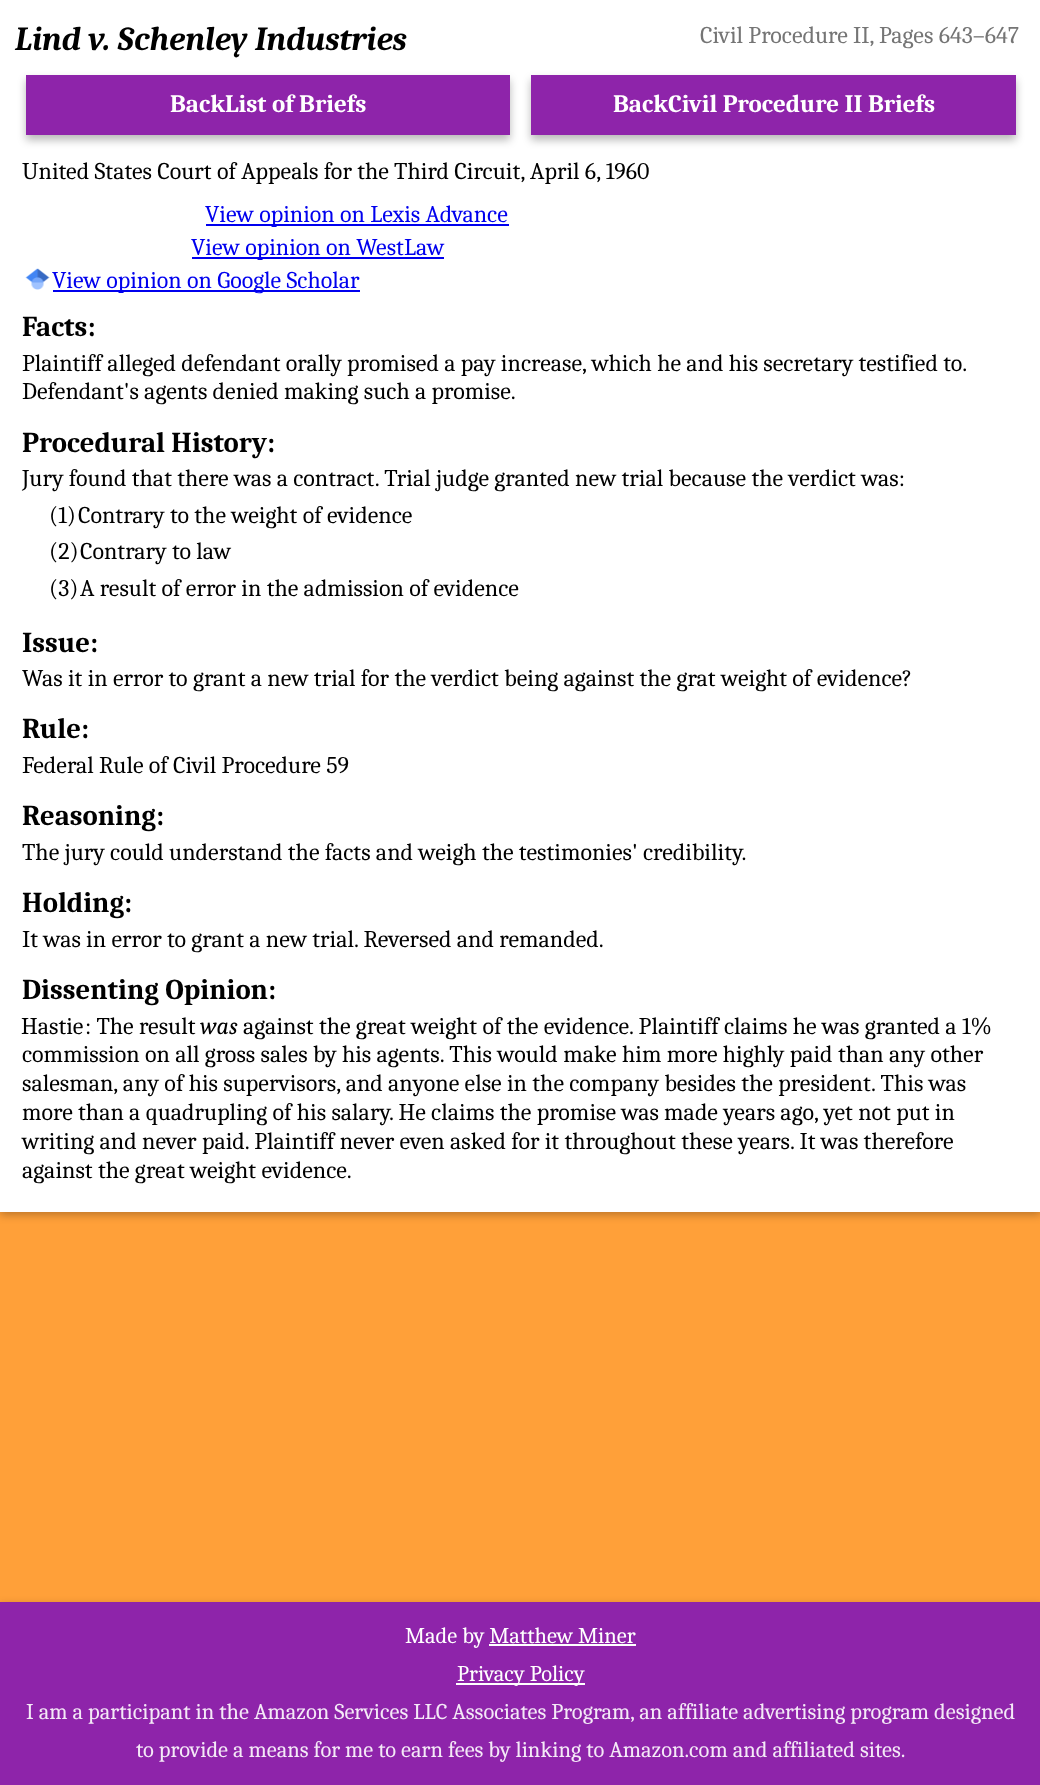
<svg xmlns="http://www.w3.org/2000/svg" width="1040" height="1785">
<style>
.a{font:italic bold 33.6px Caladea;fill:#000}
.b{font:24px Caladea;fill:#757575}
.c{font:bold 25px Caladea;fill:#fff}
.d{font:24px Caladea;fill:#000}
.e{font:24px Caladea;fill:#00e}
.f{font:bold 28.75px Caladea;fill:#000}
.g{font:italic 24px Caladea;fill:#000}
.h{font:22.5px Caladea;fill:#fff}
.i{font:22.5px Caladea;fill:#f4e9f7}
</style>
<rect width="100%" height="100%" fill="#ffa039"/>
<path fill="#00000042" filter="blur(4px)" d="M0 3h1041v1212H0z"/>
<path fill="#fff" d="M0 0h1040v1212H0z"/>
<path fill="#00000047" filter="blur(4.5px)" d="M26 80h484v60H26z"/>
<path fill="#8e24aa" d="M26 75h484v60H26z"/>
<path fill="#00000047" filter="blur(4.5px)" d="M531 80h485v60H531z"/>
<path fill="#8e24aa" d="M531 75h485v60H531z"/>
<path fill="#00e" d="M206 224h303v2H206z"/>
<path fill="#00e" d="M192 257h252v2H192z"/>
<image href="1.png" x="25" y="268" width="25" height="22"/>
<path fill="#00e" d="M53 290h307v2H53z"/>
<path fill="#00000042" filter="blur(4px)" d="M0 1605h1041v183H0z"/>
<path fill="#8e24aa" d="M0 1602h1040v183H0z"/>
<path fill="#fff" d="M489 1644h147v2H489z"/>
<path fill="#fff" d="M456 1683h129v2H456z"/>
<text class="a" x="15" y="50">Lind v. Schenley Industries</text>
<text class="b" x="700" y="43">Civil Procedure II, Pages 643–647</text>
<text class="c" x="170" y="112">BackList of Briefs</text>
<text class="c" x="613" y="112">BackCivil Procedure II Briefs</text>
<text class="d" x="22" y="179">United States Court of Appeals for the Third Circuit, April 6, 1960</text>
<text class="e" x="205" y="222">View opinion on Lexis Advance</text>
<text class="e" x="191" y="255">View opinion on WestLaw</text>
<text class="e" x="52" y="288">View opinion on Google Scholar</text>
<text class="f" x="22" y="336">Facts:</text>
<text class="d" x="22" y="371">Plaintiff alleged defendant orally promised a pay increase, which he and his secretary testified to.</text>
<text class="d" x="22" y="399">Defendant's agents denied making such a promise.</text>
<text class="f" x="22" y="452">Procedural History:</text>
<text class="d" x="22" y="486">Jury found that there was a contract. Trial judge granted new trial because the verdict was:</text>
<text class="d" x="49" y="523">(1)</text>
<text class="d" x="78" y="523">Contrary to the weight of evidence</text>
<text class="d" x="49" y="559">(2)</text>
<text class="d" x="80" y="559">Contrary to law</text>
<text class="d" x="49" y="596">(3)</text>
<text class="d" x="80" y="596">A result of error in the admission of evidence</text>
<text class="f" x="22" y="652">Issue:</text>
<text class="d" x="22" y="686">Was it in error to grant a new trial for the verdict being against the grat weight of evidence?</text>
<text class="f" x="22" y="738">Rule:</text>
<text class="d" x="22" y="773">Federal Rule of Civil Procedure 59</text>
<text class="f" x="22" y="825">Reasoning:</text>
<text class="d" x="22" y="860">The jury could understand the facts and weigh the testimonies' credibility.</text>
<text class="f" x="22" y="912">Holding:</text>
<text class="d" x="22" y="947">It was in error to grant a new trial. Reversed and remanded.</text>
<text class="f" x="22" y="999">Dissenting Opinion:</text>
<text class="d" x="21" y="1034">Hastie</text>
<text class="d" x="85" y="1034">: The result</text>
<text class="g" x="200" y="1034">was</text>
<text class="d" x="243" y="1034">against the great weight of the evidence. Plaintiff claims he was granted a 1%</text>
<text class="d" x="22" y="1062">commission on all gross sales by his agents. This would make him more highly paid than any other</text>
<text class="d" x="22" y="1091">salesman, any of his supervisors, and anyone else in the company besides the president. This was</text>
<text class="d" x="22" y="1120">more than a quadrupling of his salary. He claims the promise was made years ago, yet not put in</text>
<text class="d" x="22" y="1149">writing and never paid. Plaintiff never even asked for it throughout these years. It was therefore</text>
<text class="d" x="22" y="1178">against the great weight evidence.</text>
<text class="h" x="405" y="1643">Made by Matthew Miner</text>
<text class="h" x="457" y="1681">Privacy Policy</text>
<text class="i" x="26" y="1719">I am a participant in the Amazon Services LLC Associates Program, an affiliate advertising program designed</text>
<text class="i" x="136" y="1757">to provide a means for me to earn fees by linking to Amazon.com and affiliated sites.</text>
</svg>
